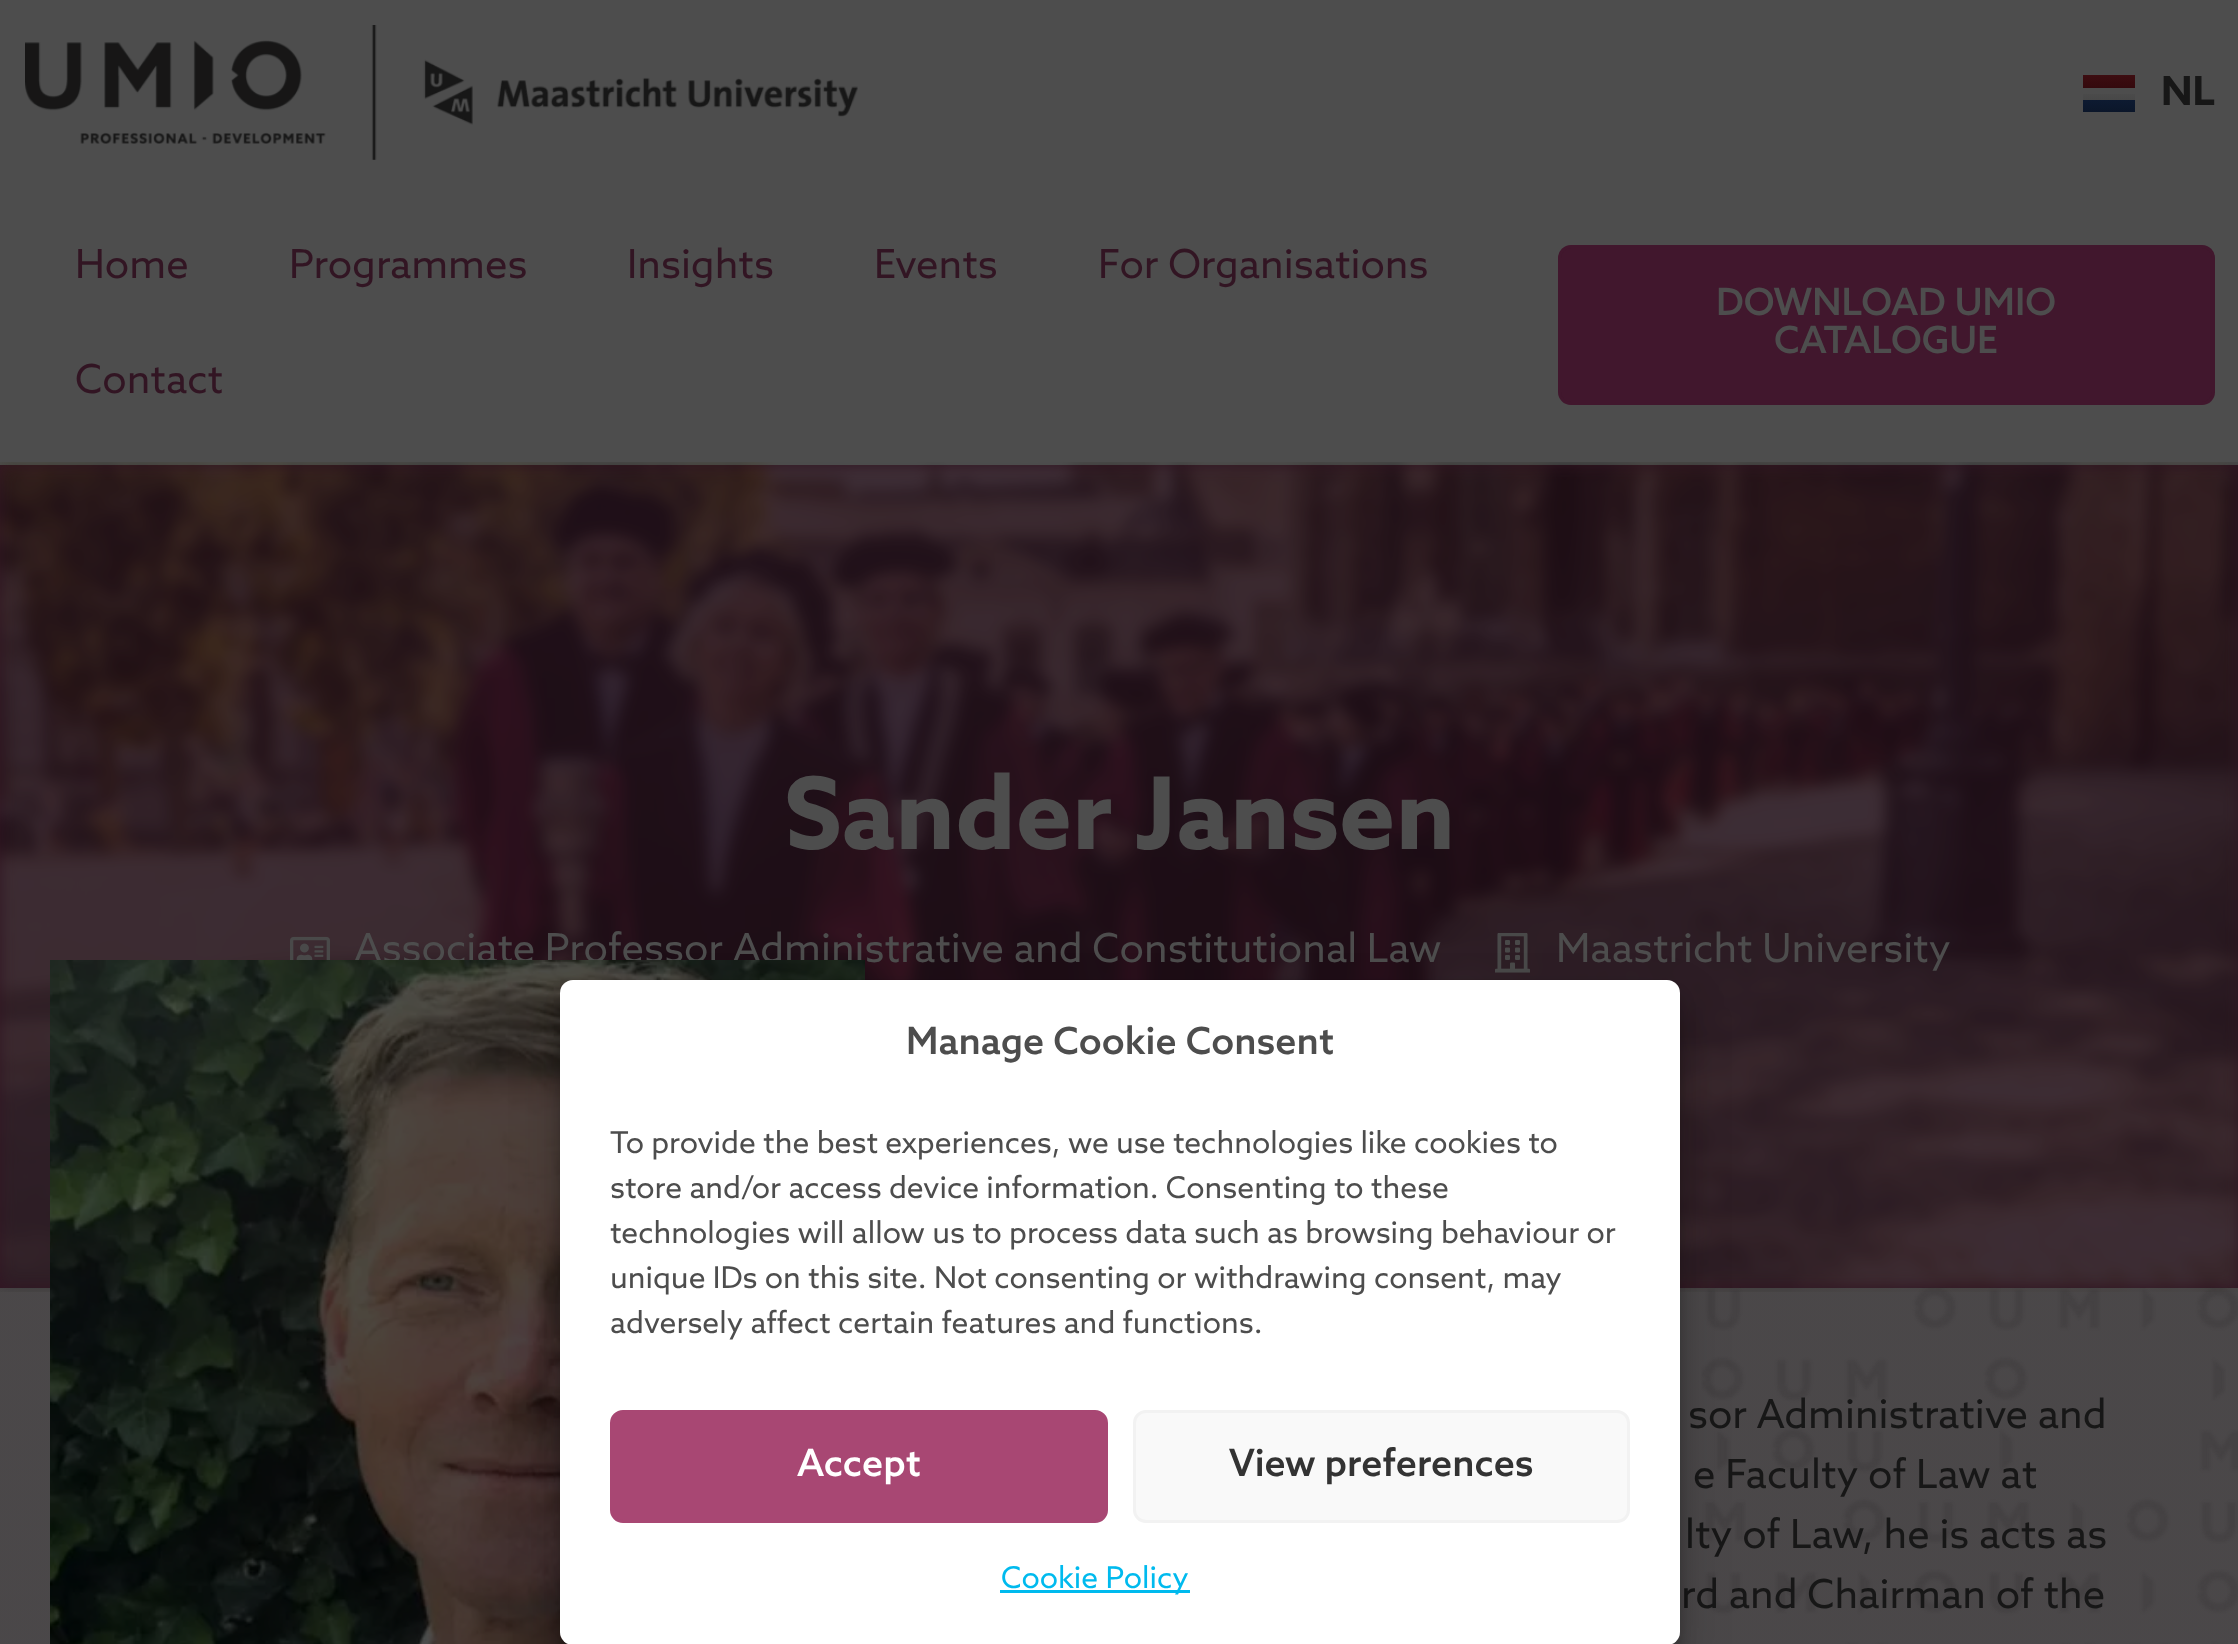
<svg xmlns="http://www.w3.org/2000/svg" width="2238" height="1644">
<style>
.a{font:bold 40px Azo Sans;fill:#171717}
.b{font:40px Azo Sans;fill:#321523}
.c{font:500 37.5px Azo Sans;fill:#4d4d4d}
.d{font:bold 100px Azo Sans;fill:#4d4d4d}
.e{font:40px Azo Sans;fill:#4d4d4d}
.f{font:40px Azo Sans;fill:#171717}
.g{font:30px Azo Sans;fill:#4d4d4d}
.h{font:500 37.5px Azo Sans;fill:#fff}
.i{font:500 37.5px Azo Sans;fill:#333}
.j{font:30px Azo Sans;fill:#00baee}
</style>
<defs>
<linearGradient id="g1" gradientUnits="userSpaceOnUse" x1="2109" y1="75" x2="2109" y2="88"><stop offset="0" stop-color="#3d0d11"/><stop offset="1" stop-color="#34090d"/></linearGradient>
<linearGradient id="g2" gradientUnits="userSpaceOnUse" x1="2109" y1="88" x2="2109" y2="100"><stop offset="0" stop-color="#4d4d4d"/><stop offset="1" stop-color="#484848"/></linearGradient>
<linearGradient id="g3" gradientUnits="userSpaceOnUse" x1="2109" y1="100" x2="2109" y2="113"><stop offset="0" stop-color="#0d1a31"/><stop offset="1" stop-color="#0b1629"/></linearGradient>
<linearGradient id="g4" gradientUnits="userSpaceOnUse" x1="1120" y1="1288" x2="1120" y2="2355"><stop offset="0.5" stop-color="#321523" stop-opacity="0.1"/><stop offset="1" stop-color="#4d4d4d" stop-opacity="0.1"/></linearGradient>
</defs>
<rect width="100%" height="100%" fill="#4d4d4d"/>
<image href="1.png" x="25" y="25" width="833" height="135"/>
<path fill="url(#g1)" d="M2083 75h52v13H2083z"/>
<path fill="url(#g2)" d="M2083 94h52v6H2083z"/>
<path fill="url(#g3)" d="M2083 100h52v12H2083z"/>
<rect fill="#41172d" stroke="#41172d" stroke-width="3" x="1559.5" y="246.5" width="654" height="157" rx="11.5"/>
<path fill="#321523" d="M0 465h2238v823H0z"/>
<image href="2.png" x="0" y="462" width="2238" height="830"/>
<image href="3.png" x="290" y="936" width="40" height="24"/>
<image href="4.png" x="1495" y="933" width="35" height="40"/>
<image href="5.png" x="1701" y="1287" width="537" height="357"/>
<path fill="url(#g4)" d="M0 1288h2238v356H0z"/>
<text class="a" x="2161" y="105">NL</text>
<text class="b" x="75" y="278">Home</text>
<text class="b" x="289" y="278">Programmes</text>
<text class="b" x="627" y="278">Insights</text>
<text class="b" x="874" y="278">Events</text>
<text class="b" x="1098" y="278">For Organisations</text>
<text class="b" x="75" y="393">Contact</text>
<text class="c" x="1716" y="315">DOWNLOAD UMIO</text>
<text class="c" x="1774" y="353">CATALOGUE</text>
<text class="d" x="784" y="849">Sander Jansen</text>
<text class="e" x="354" y="962">Associate Professor Administrative and Constitutional Law</text>
<text class="e" x="1556" y="962">Maastricht University</text>
<image href="6.png" x="50" y="960" width="815" height="684"/>
<text class="f" x="1688" y="1428">sor Administrative and</text>
<text class="f" x="1693" y="1488">e Faculty of Law at</text>
<text class="f" x="1685" y="1548">lty of Law, he is acts as</text>
<text class="f" x="1681" y="1608">rd and Chairman of the</text>
<rect fill="#0000003b" filter="blur(7.5px)" x="560" y="995" width="1120" height="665" rx="13"/>
<rect fill="#00000030" filter="blur(25px)" x="560" y="1005" width="1120" height="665" rx="13"/>
<rect fill="#fff" x="560" y="980" width="1120" height="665" rx="13"/>
<text class="c" x="906" y="1054">Manage Cookie Consent</text>
<text class="g" x="610" y="1153">To provide the best experiences, we use technologies like cookies to</text>
<text class="g" x="610" y="1198">store and/or access device information. Consenting to these</text>
<text class="g" x="610" y="1243">technologies will allow us to process data such as browsing behaviour or</text>
<text class="g" x="610" y="1288">unique IDs on this site. Not consenting or withdrawing consent, may</text>
<text class="g" x="610" y="1333">adversely affect certain features and functions.</text>
<rect fill="#a84773" stroke="#a84773" stroke-width="3" x="611.5" y="1411.5" width="495" height="110" rx="11.5"/>
<text class="h" x="797" y="1476">Accept</text>
<rect fill="#f9f9f9" stroke="#f2f2f2" stroke-width="3" x="1134.5" y="1411.5" width="494" height="110" rx="11.5"/>
<text class="i" x="1229" y="1476">View preferences</text>
<path fill="#00baee" d="M1000 1590h190v3H1000z"/>
<text class="j" x="1001" y="1588">Cookie Policy</text>
</svg>
